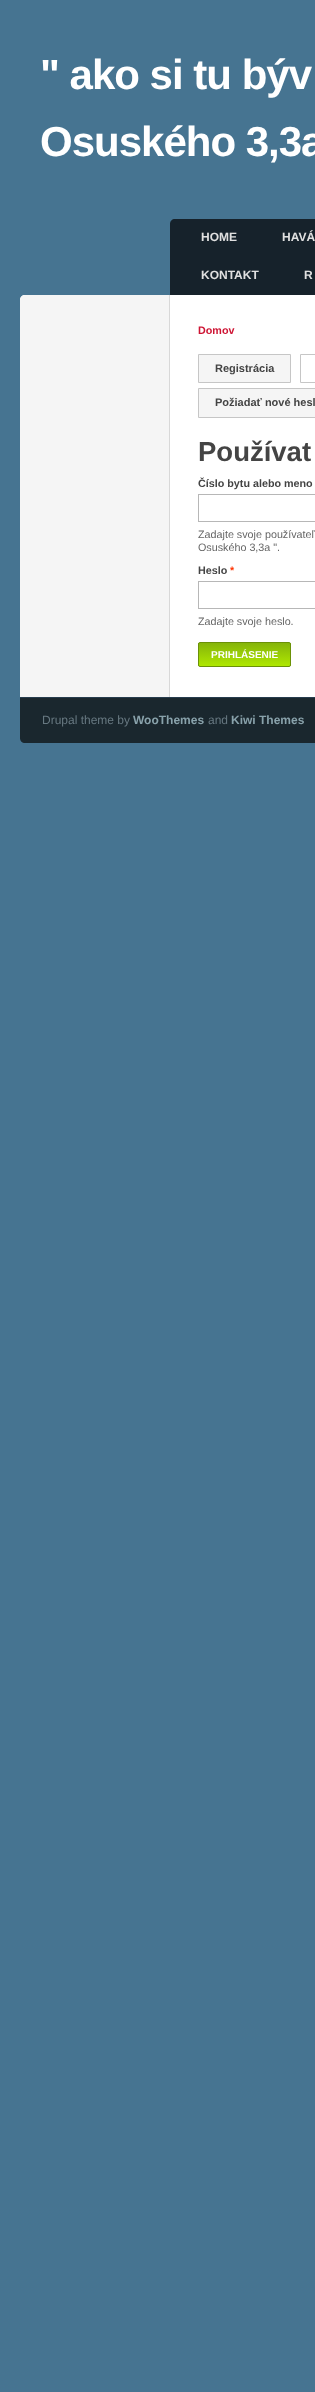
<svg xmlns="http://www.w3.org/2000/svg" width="315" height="2392">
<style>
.a{font:bold 42px Liberation Sans;letter-spacing:-1px;fill:#fff}
.b{font:bold 12px Liberation Sans;fill:#e0e0e0}
.c{font:bold 10.75px Liberation Sans;fill:#ce1433}
.d{font:bold 11px Liberation Sans;fill:#444}
.e{font:bold 27.5px Liberation Sans;fill:#444}
.f{font:bold 10.75px Liberation Sans;fill:#444}
.g{font:10.75px Liberation Sans;fill:#666}
.h{font:bold 10.75px Liberation Sans;fill:#f30}
.i{font:bold 10px Liberation Sans;fill:#fff}
.j{font:12px Liberation Sans;fill:#677881}
.k{font:bold 12px Liberation Sans;fill:#89a2ab}
</style>
<defs>
<clipPath id="clip1"><rect x="198" y="642" width="93" height="25" rx="2"/></clipPath>
<linearGradient id="g1" gradientUnits="userSpaceOnUse" x1="199" y1="643" x2="199" y2="666"><stop offset="0" stop-color="#85b40a"/><stop offset="1" stop-color="#afe801"/></linearGradient>
</defs>
<rect width="100%" height="100%" fill="#467491"/>
<path fill="#16222b" d="M175 219h140c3 0 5 2 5 5v71h-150v-71c0-3 2-5 5-5z"/>
<path fill="#fff" d="M25 295h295v402h-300v-397c0-3 2-5 5-5z"/>
<image href="1.png" x="20" y="295" width="150" height="402"/>
<path fill="#f5f5f5" stroke="#c6c6c6" d="M198.5 354.5h92v28H198.5z"/>
<path fill="none" stroke="#c6c6c6" d="M300.5 354.5h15v28H300.5z"/>
<path fill="#f5f5f5" stroke="#c6c6c6" d="M198.5 388.5h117v29H198.5z"/>
<path fill="#b7b7b7" d="M198 494v28h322v-1h-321v-26h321v-1z"/>
<path fill="#b7b7b7" d="M198 581v28h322v-1h-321v-26h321v-1z"/>
<g clip-path="url(#clip1)">
<path fill="url(#g1)" d="M198 643h93v23H198z"/>
</g>
<rect fill="none" stroke="#6b9107" x="198.5" y="642.5" width="92" height="24" rx="1.5"/>
<image href="2.png" x="20" y="738" width="5" height="5"/>
<path fill="#1a272e" d="M20 697h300v41c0 3-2 5-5 5h-290c-3 0-5-2-5-5z"/>
<path fill="#273d4e" d="M20 697h295v1H20z"/>
<text class="a" x="40" y="89">" ako si tu býv</text>
<text class="a" x="40" y="156">Osuského 3,3a</text>
<text class="b" x="201" y="241">HOME</text>
<text class="b" x="282" y="241">HAVÁ</text>
<text class="b" x="201" y="279">KONTAKT</text>
<text class="b" x="304" y="279">R</text>
<text class="c" x="198" y="334">Domov</text>
<text class="d" x="215" y="372">Registrácia</text>
<text class="d" x="215" y="406">Požiadať nové hesl</text>
<text class="e" x="198" y="461">Používat</text>
<text class="f" x="198" y="487">Číslo bytu alebo meno</text>
<text class="g" x="198" y="538">Zadajte svoje používateľ</text>
<text class="g" x="198" y="551">Osuského 3,3a ".</text>
<text class="f" x="198" y="574">Heslo</text>
<text class="h" x="230" y="574">*</text>
<text class="g" x="198" y="625">Zadajte svoje heslo.</text>
<text class="i" x="211" y="658">PRIHLÁSENIE</text>
<text class="j" x="42" y="724">Drupal theme by</text>
<text class="k" x="133" y="724">WooThemes</text>
<text class="j" x="208" y="724">and</text>
<text class="k" x="231" y="724">Kiwi Themes</text>
</svg>
